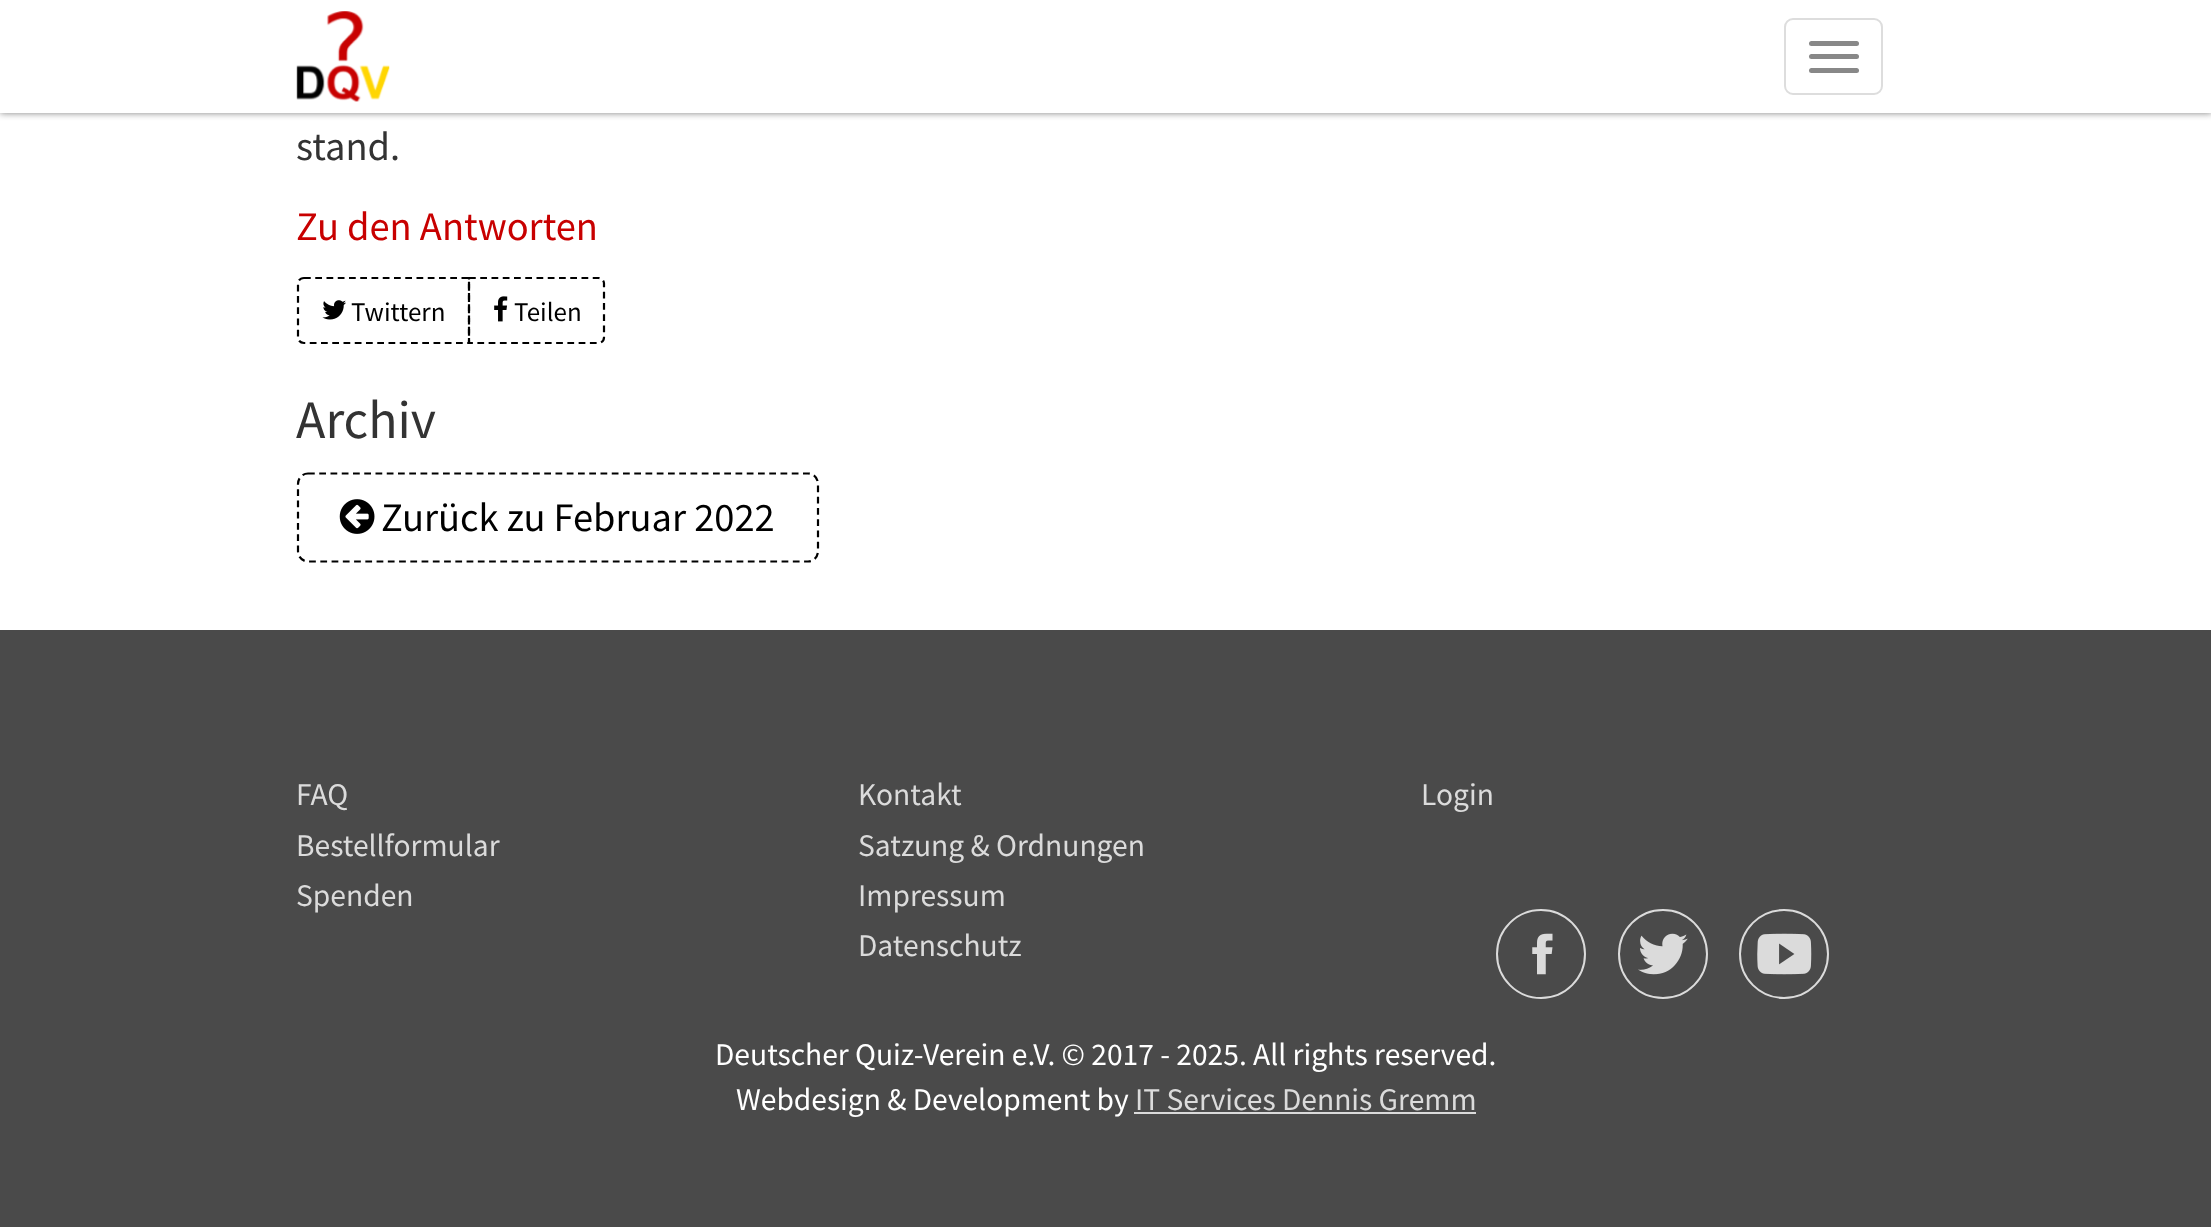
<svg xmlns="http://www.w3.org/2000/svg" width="2211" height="1227">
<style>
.a{font:40.5px Source Sans Pro;fill:#333}
.b{font:40.5px Source Sans Pro;fill:#c80000}
.c{font:27px Source Sans Pro;fill:#000}
.d{font:54px Source Sans Pro;fill:#333}
.e{font:40.5px Source Sans Pro;fill:#000}
.f{font:31.5px Source Sans Pro;fill:#dbdbdb}
.g{font:31.5px Source Sans Pro;fill:#fff}
</style>
<rect width="100%" height="100%" fill="#fff"/>
<path fill="#00000080" filter="blur(3.5px)" d="M0 0h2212v113H0z"/>
<path fill="#fff" d="M0 0h2211v113H0z"/>
<image href="1.png" x="296" y="11" width="94" height="91"/>
<rect fill="none" stroke="#ddd" stroke-width="2" x="1785" y="19" width="97" height="75" rx="8"/>
<rect fill="#888" x="1809" y="41" width="50" height="5" rx="2.5"/>
<rect fill="#888" x="1809" y="54" width="50" height="5" rx="2.5"/>
<rect fill="#888" x="1809" y="68" width="50" height="5" rx="2.5"/>
<path fill="none" stroke="#000" stroke-width="2.2" stroke-dasharray="6.75 4.5" d="M304 278h165v65h-165c-3.5 0-6-2.5-6-5.5v-54c0-3 2.5-5.5 6-5.5z"/>
<image href="2.png" x="322" y="300" width="24" height="20"/>
<path fill="none" stroke="#000" stroke-width="2.2" stroke-dasharray="6.75 4.5" d="M469 278h129.5c3 0 5.5 2.5 5.5 5.5v54c0 3-2.5 5.5-5.5 5.5h-129.5z"/>
<image href="3.png" x="494" y="296" width="14" height="26"/>
<path fill="none" stroke="#000" stroke-width="2.2" stroke-dasharray="6.75 4.5" d="M308 473.5h500c5.5 0 10 4.5 10 10.5v67c0 6-4.5 10.5-10 10.5h-500c-5.5 0-10-4.5-10-10.5v-67c0-6 4.5-10.5 10-10.5z"/>
<image href="4.png" x="339" y="499" width="36" height="35"/>
<path fill="#4a4a4a" d="M0 630h2211v597H0z"/>
<circle fill="none" stroke="#dbdbdb" stroke-width="2" cx="1541" cy="954" r="44"/>
<image href="5.png" x="1532" y="933" width="21" height="42"/>
<circle fill="none" stroke="#dbdbdb" stroke-width="2" cx="1663" cy="954" r="44"/>
<image href="6.png" x="1638" y="933" width="50" height="42"/>
<circle fill="none" stroke="#dbdbdb" stroke-width="2" cx="1784" cy="954" r="44"/>
<image href="7.png" x="1757" y="933" width="55" height="42"/>
<path fill="#dbdbdb" d="M1134 1112h342v2H1134z"/>
<text class="a" x="296" y="160">stand.</text>
<text class="b" x="296" y="240">Zu den Antworten</text>
<text class="c" x="351" y="321">Twittern</text>
<text class="c" x="514" y="321">Teilen</text>
<text class="d" x="296" y="438">Archiv</text>
<text class="e" x="381" y="531">Zurück zu Februar 2022</text>
<text class="f" x="296" y="805">FAQ</text>
<text class="f" x="296" y="856">Bestellformular</text>
<text class="f" x="296" y="906">Spenden</text>
<text class="f" x="858" y="805">Kontakt</text>
<text class="f" x="858" y="856">Satzung &amp; Ordnungen</text>
<text class="f" x="858" y="906">Impressum</text>
<text class="f" x="858" y="956">Datenschutz</text>
<text class="f" x="1421" y="805">Login</text>
<text class="g" x="715" y="1065">Deutscher Quiz-Verein e.V. © 2017 - 2025. All rights reserved.</text>
<text class="g" x="736" y="1110">Webdesign &amp; Development by</text>
<text class="f" x="1135" y="1110">IT Services Dennis Gremm</text>
</svg>
